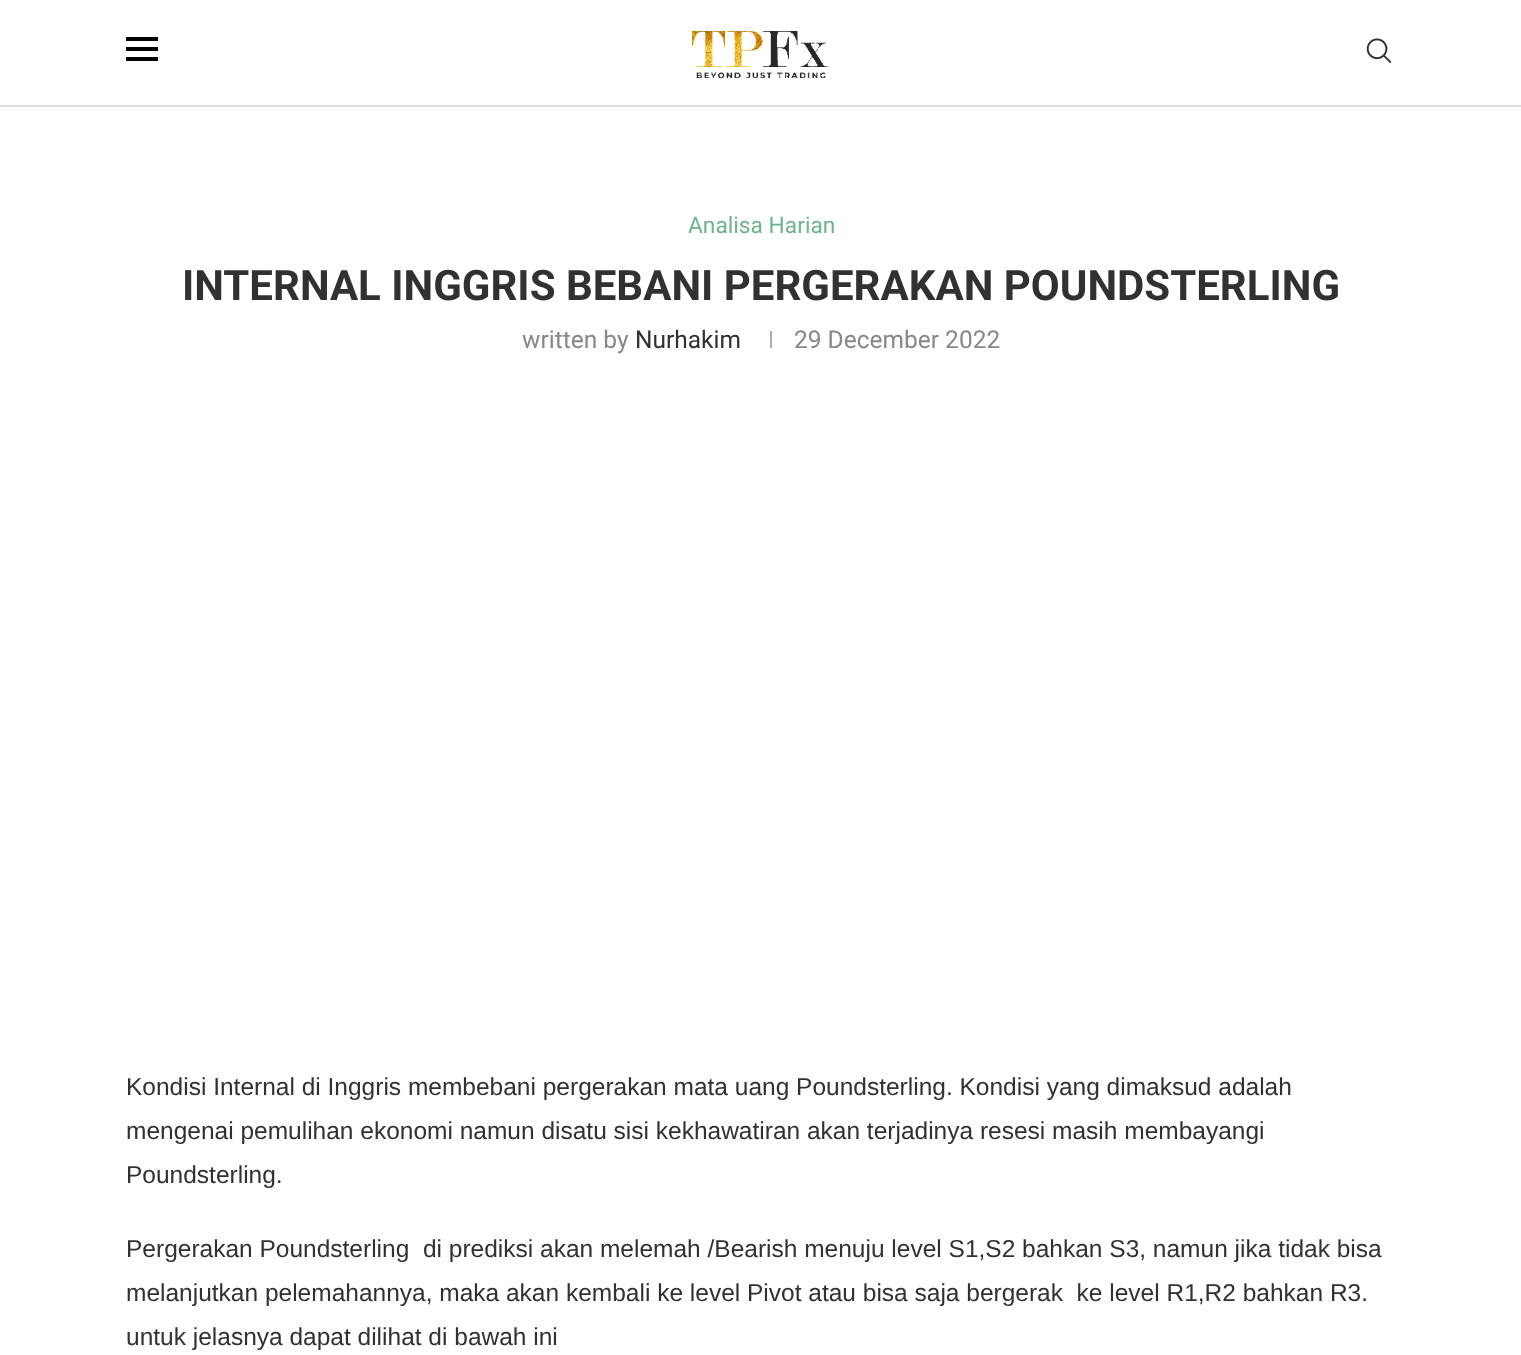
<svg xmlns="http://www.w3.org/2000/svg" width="1521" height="1355">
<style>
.a{font:22.75px Roboto;fill:#6eb48c}
.b{font:bold 42px Roboto;fill:#313131}
.c{font:24.5px Roboto;fill:#888}
.d{font:24.5px Roboto;fill:#313131}
.e{font:24.5px Liberation Sans;fill:#313131}
</style>
<rect width="100%" height="100%" fill="#fff"/>
<path fill="#dedede" d="M0 105h1521v2H0z"/>
<path fill="#000" d="M126 37h32v4H126z"/>
<path fill="#000" d="M126 47h32v4H126z"/>
<path fill="#000" d="M126 57h32v4H126z"/>
<image href="1.png" x="692" y="31" width="136" height="47"/>
<image href="2.png" x="1366" y="38" width="26" height="25"/>
<path fill="#acacac" d="M770 331h2v17H770z"/>
<text class="a" x="688" y="233">Analisa Harian</text>
<text class="b" x="182" y="300">INTERNAL INGGRIS BEBANI PERGERAKAN POUNDSTERLING</text>
<text class="c" x="522" y="348">written by</text>
<text class="d" x="635" y="348">Nurhakim</text>
<text class="c" x="794" y="348">29 December 2022</text>
<text class="e" x="126" y="1095">Kondisi Internal di Inggris membebani pergerakan mata uang Poundsterling. Kondisi yang dimaksud adalah</text>
<text class="e" x="126" y="1139">mengenai pemulihan ekonomi namun disatu sisi kekhawatiran akan terjadinya resesi masih membayangi</text>
<text class="e" x="126" y="1183">Poundsterling.</text>
<text class="e" xml:space="preserve" x="126" y="1257">Pergerakan Poundsterling  di prediksi akan melemah /Bearish menuju level S1,S2 bahkan S3, namun jika tidak bisa</text>
<text class="e" xml:space="preserve" x="126" y="1301">melanjutkan pelemahannya, maka akan kembali ke level Pivot atau bisa saja bergerak  ke level R1,R2 bahkan R3.</text>
<text class="e" x="126" y="1345">untuk jelasnya dapat dilihat di bawah ini</text>
</svg>
